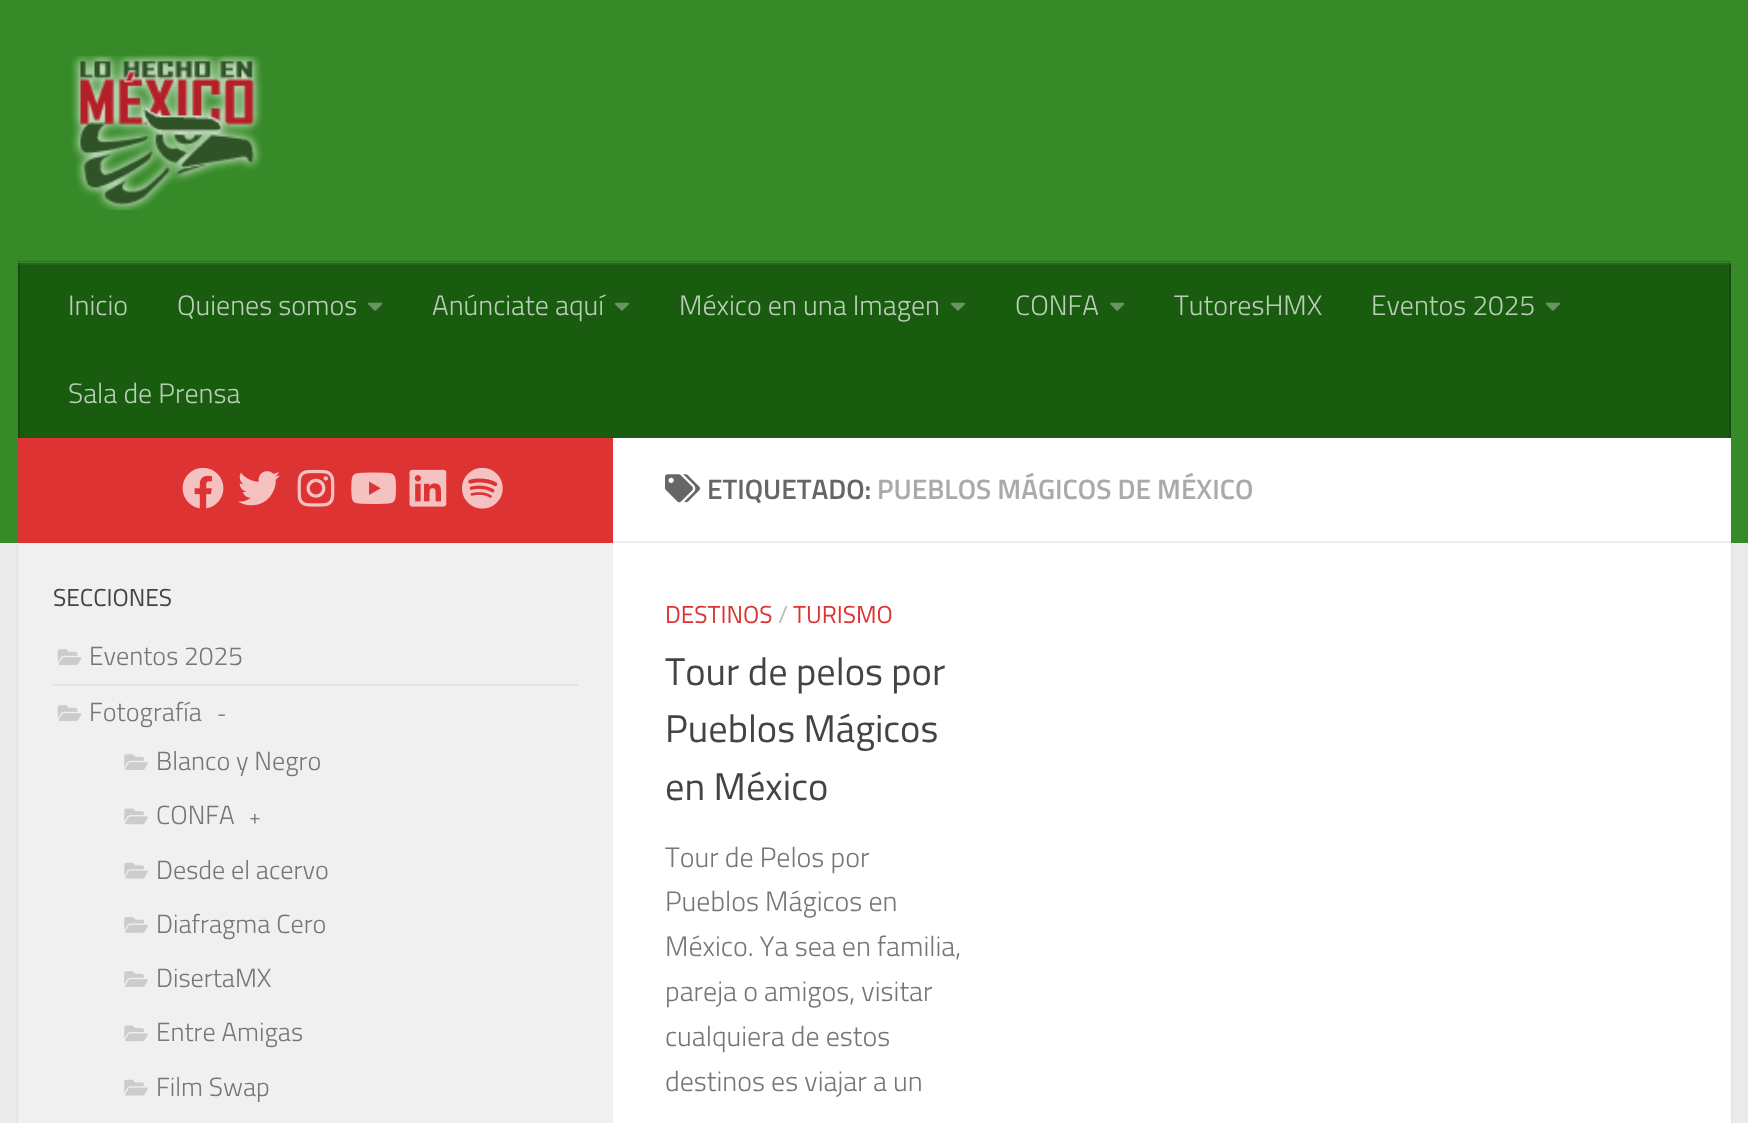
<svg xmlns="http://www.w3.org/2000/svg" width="1748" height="1123">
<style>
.a{font:300 28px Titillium;fill:#baceb7}
.b{font:24.5px Titillium;fill:#444}
.c{font:300 26.25px Titillium;fill:#767676}
.d{font:300 21px Titillium;fill:#666}
.e{font:600 28px Titillium;fill:#666}
.f{font:600 28px Titillium;fill:#aaa}
.g{font:24.5px Titillium;fill:#d33}
.h{font:24.5px Titillium;fill:#bbb}
.i{font:38.5px Titillium;fill:#444}
.j{font:300 28px Titillium;fill:#767676}
</style>
<rect width="100%" height="100%" fill="#eaeaea"/>
<path fill="#0000001a" filter="blur(1px)" d="M18 439h1713v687H18z"/>
<path fill="#368b28" d="M0 0h1748v543H0z"/>
<image href="1.png" x="71" y="55" width="192" height="155"/>
<path fill="#2b6f20" d="M18 261v1h1713v174v-175z"/>
<path fill="#195c10" d="M20 265h1709v173H20z"/>
<path fill="#25641c" d="M18 263h1713v2H18z"/>
<path fill="#144a0d" d="M1729 263h2v175H1729z"/>
<path fill="#205319" d="M1729 263h2v2H1729z"/>
<path fill="#144a0d" d="M18 263h2v175H18z"/>
<path fill="#205319" d="M18 263h2v2H18z"/>
<image href="2.png" x="368" y="302" width="15" height="9"/>
<image href="3.png" x="614" y="302" width="15" height="9"/>
<image href="3.png" x="950" y="302" width="15" height="9"/>
<image href="2.png" x="1110" y="302" width="15" height="9"/>
<image href="3.png" x="1545" y="302" width="15" height="9"/>
<path fill="#fff" d="M613 438h1118v685H613z"/>
<path fill="#d33" d="M18 438h595v105H18z"/>
<image href="4.png" x="182" y="467" width="42" height="42"/>
<image href="5.png" x="238" y="471" width="42" height="35"/>
<image href="6.png" x="297" y="469" width="38" height="38"/>
<image href="7.png" x="351" y="472" width="45" height="32"/>
<image href="8.png" x="409" y="469" width="38" height="38"/>
<image href="9.png" x="462" y="467" width="41" height="42"/>
<path fill="#f0f0f0" d="M18 543h595v580H18z"/>
<path fill="#e4e4e4" d="M53 684h525v2H53z"/>
<image href="10.png" x="57" y="649" width="25" height="16"/>
<image href="10.png" x="57" y="705" width="25" height="16"/>
<image href="11.png" x="124" y="754" width="24" height="16"/>
<image href="12.png" x="124" y="808" width="24" height="17"/>
<image href="13.png" x="124" y="862" width="24" height="17"/>
<image href="14.png" x="124" y="917" width="24" height="16"/>
<image href="11.png" x="124" y="971" width="24" height="16"/>
<image href="12.png" x="124" y="1025" width="24" height="17"/>
<image href="13.png" x="124" y="1079" width="24" height="17"/>
<path fill="#eee" d="M613 541h1118v2H613z"/>
<image href="15.png" x="665" y="474" width="35" height="29"/>
<text class="a" x="68" y="315">Inicio</text>
<text class="a" x="177" y="315">Quienes somos</text>
<text class="a" x="432" y="315">Anúnciate aquí</text>
<text class="a" x="679" y="315">México en una Imagen</text>
<text class="a" x="1015" y="315">CONFA</text>
<text class="a" x="1174" y="315">TutoresHMX</text>
<text class="a" x="1371" y="315">Eventos 2025</text>
<text class="a" x="68" y="403">Sala de Prensa</text>
<text class="b" x="53" y="606">SECCIONES</text>
<text class="c" x="89" y="665">Eventos 2025</text>
<text class="c" x="89" y="721">Fotografía</text>
<text class="d" x="217" y="721">-</text>
<text class="c" x="156" y="770">Blanco y Negro</text>
<text class="c" x="156" y="824">CONFA</text>
<text class="d" x="249" y="824">+</text>
<text class="c" x="156" y="879">Desde el acervo</text>
<text class="c" x="156" y="933">Diafragma Cero</text>
<text class="c" x="156" y="987">DisertaMX</text>
<text class="c" x="156" y="1041">Entre Amigas</text>
<text class="c" x="156" y="1096">Film Swap</text>
<text class="e" x="707" y="499">ETIQUETADO:</text>
<text class="f" x="877" y="499">PUEBLOS MÁGICOS DE MÉXICO</text>
<text class="g" x="665" y="623">DESTINOS</text>
<text class="h" x="778" y="623">/</text>
<text class="g" x="793" y="623">TURISMO</text>
<text class="i" x="665" y="685">Tour de pelos por</text>
<text class="i" x="665" y="742">Pueblos Mágicos</text>
<text class="i" x="665" y="800">en México</text>
<text class="j" x="665" y="867">Tour de Pelos por</text>
<text class="j" x="665" y="911">Pueblos Mágicos en</text>
<text class="j" x="665" y="956">México. Ya sea en familia,</text>
<text class="j" x="665" y="1001">pareja o amigos, visitar</text>
<text class="j" x="665" y="1046">cualquiera de estos</text>
<text class="j" x="665" y="1091">destinos es viajar a un</text>
</svg>
